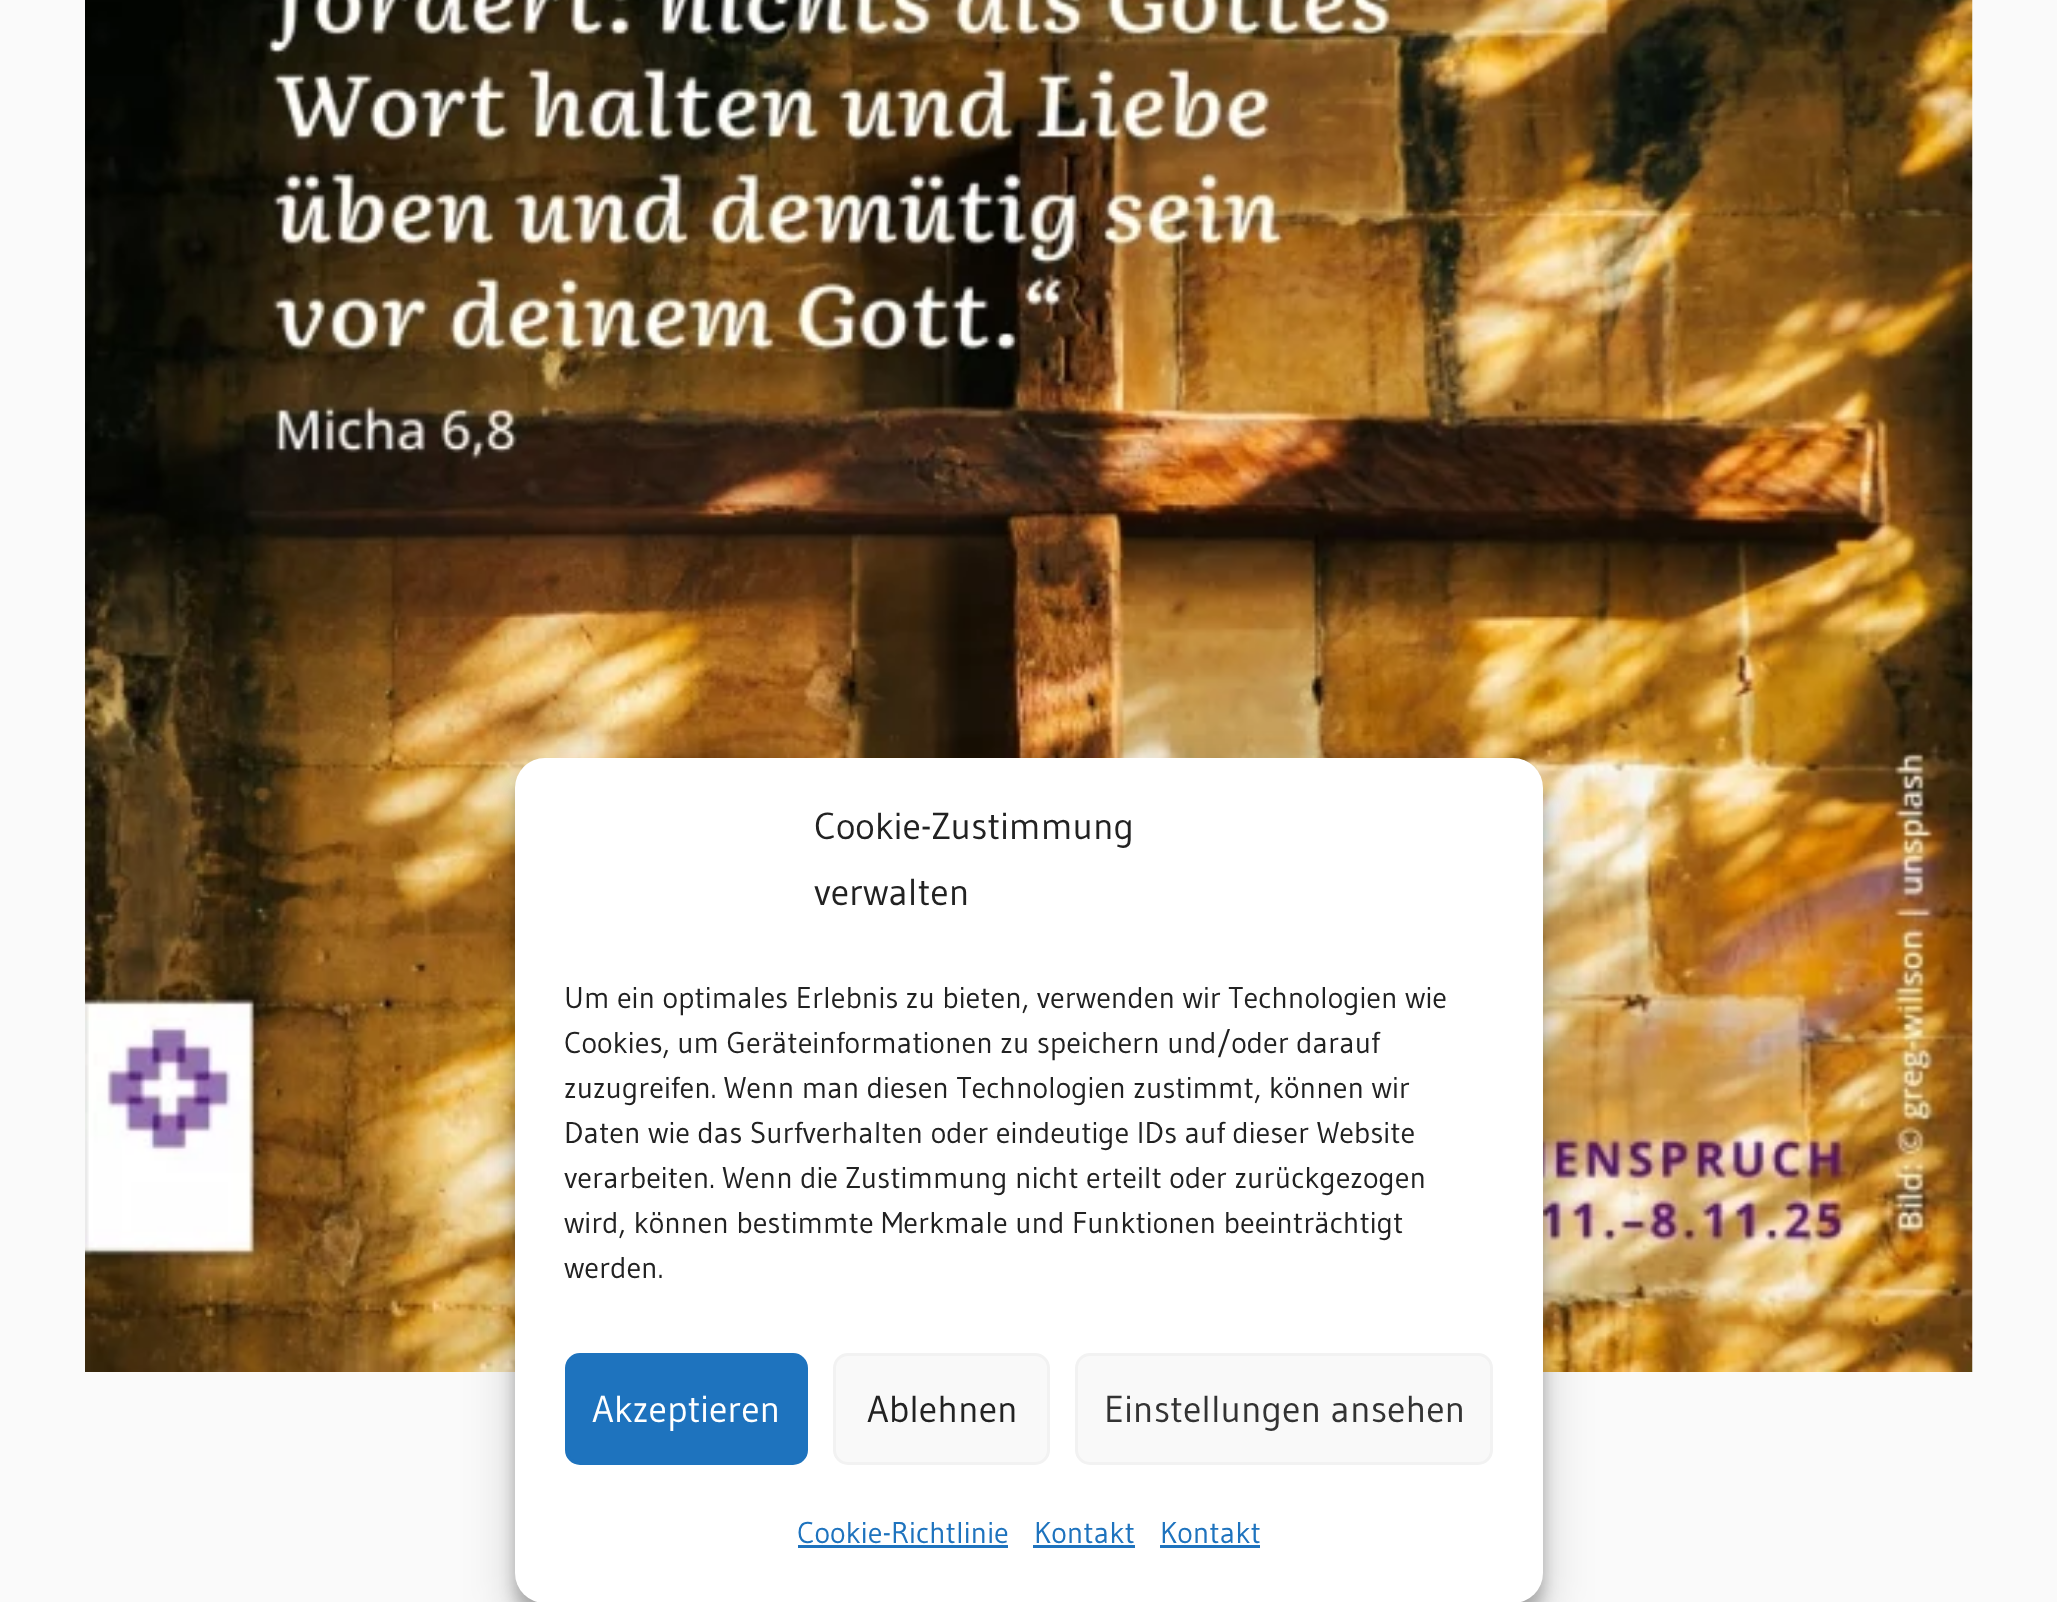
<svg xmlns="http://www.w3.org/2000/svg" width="2057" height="1602">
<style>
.a{font:37.5px Gudea;fill:#222}
.b{font:30px Gudea;fill:#222}
.c{font:37.5px Gudea;fill:#fff}
.d{font:37.5px Gudea;fill:#333}
.e{font:30px Gudea;fill:#1e73be}
</style>
<rect width="100%" height="100%" fill="#fafafa"/>
<image href="1.png" x="85" y="0" width="1888" height="1372"/>
<rect fill="#0000003b" filter="blur(7.5px)" x="515" y="773" width="1028" height="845" rx="30"/>
<rect fill="#00000030" filter="blur(25px)" x="515" y="783" width="1028" height="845" rx="30"/>
<rect fill="#fff" x="515" y="758" width="1028" height="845" rx="30"/>
<rect fill="#1e73be" stroke="#1e73be" stroke-width="3" x="566.5" y="1354.5" width="240" height="109" rx="13.5"/>
<rect fill="#f9f9f9" stroke="#f2f2f2" stroke-width="3" x="834.5" y="1354.5" width="214" height="109" rx="13.5"/>
<rect fill="#f9f9f9" stroke="#f2f2f2" stroke-width="3" x="1076.5" y="1354.5" width="415" height="109" rx="13.5"/>
<path fill="#1e73be" d="M798 1545h210v3H798z"/>
<path fill="#1e73be" d="M1033 1545h102v3H1033z"/>
<path fill="#1e73be" d="M1160 1545h100v3H1160z"/>
<text class="a" x="814" y="839">Cookie-Zustimmung</text>
<text class="a" x="814" y="905">verwalten</text>
<text class="b" x="564" y="1008">Um ein optimales Erlebnis zu bieten, verwenden wir Technologien wie</text>
<text class="b" x="564" y="1053">Cookies, um Geräteinformationen zu speichern und/oder darauf</text>
<text class="b" x="564" y="1098">zuzugreifen. Wenn man diesen Technologien zustimmt, können wir</text>
<text class="b" x="564" y="1143">Daten wie das Surfverhalten oder eindeutige IDs auf dieser Website</text>
<text class="b" x="564" y="1188">verarbeiten. Wenn die Zustimmung nicht erteilt oder zurückgezogen</text>
<text class="b" x="564" y="1233">wird, können bestimmte Merkmale und Funktionen beeinträchtigt</text>
<text class="b" x="564" y="1278">werden.</text>
<text class="c" x="592" y="1422">Akzeptieren</text>
<text class="a" x="867" y="1422">Ablehnen</text>
<text class="d" x="1104" y="1422">Einstellungen ansehen</text>
<text class="e" x="797" y="1543">Cookie-Richtlinie</text>
<text class="e" x="1034" y="1543">Kontakt</text>
<text class="e" x="1160" y="1543">Kontakt</text>
</svg>
